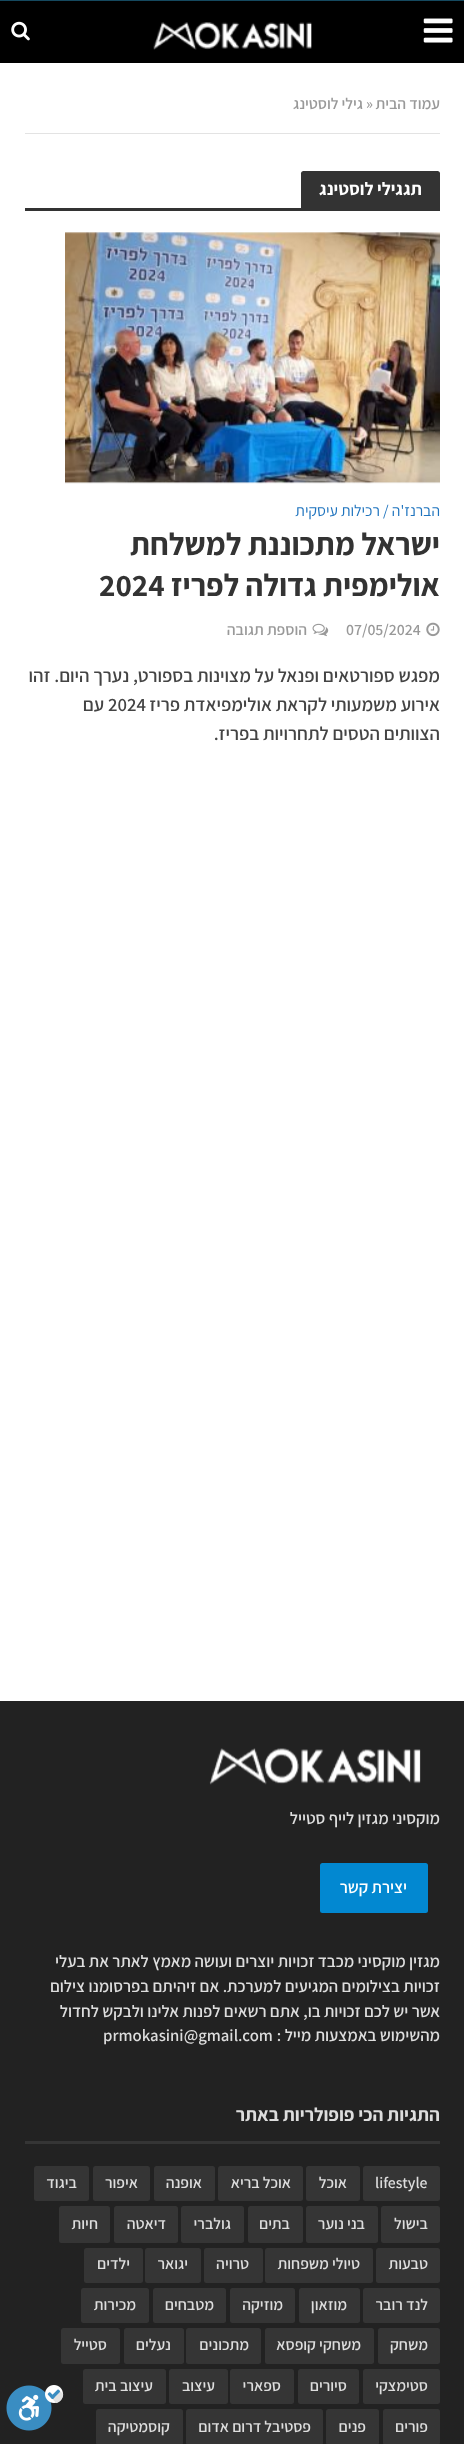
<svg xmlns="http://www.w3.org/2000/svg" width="464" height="2444">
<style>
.a{font:600 15.75px Assistant;direction:rtl;fill:#999}
.b{font:600 15.75px Assistant;fill:#999}
.c{font:bold 18px Assistant;direction:rtl;fill:#fff}
.d{font:15.75px Assistant;direction:rtl;fill:#1e73be}
.e{font:bold 31.4px Assistant;direction:rtl;fill:#333}
.f{font:bold 31.4px Assistant;fill:#333}
.g{font:600 18.75px Assistant;direction:rtl;fill:#444}
.h{font:600 18.75px Assistant;fill:#444}
.i{font:600 16.8px Assistant;direction:rtl;fill:#ddd}
.j{font:600 16.8px Assistant;direction:rtl;fill:#fff}
.k{font:600 16.8px Assistant;fill:#ddd}
.l{font:bold 19px Assistant;direction:rtl;fill:#ddd}
.m{font:600 15.75px Assistant;fill:#ddd}
.n{font:600 15.75px Assistant;direction:rtl;fill:#ddd}
</style>
<rect width="100%" height="100%" fill="#fff"/>
<path fill="#15495f" d="M0 0h464v1H0z"/>
<path fill="#222" d="M0 1701h464v743H0z"/>
<image href="1.png" x="6" y="2385" width="58" height="46"/>
<path fill="#000" d="M0 1h464v62H0z"/>
<image href="2.png" x="423" y="18" width="30" height="25"/>
<image href="3.png" x="153" y="22" width="159" height="28"/>
<image href="4.png" x="11" y="21" width="19" height="20"/>
<path fill="#e3e3e3" d="M25 133h415v1H25z"/>
<path fill="#333" d="M303.5 171h134c1.5 0 2.5 1 2.5 2.5v34.5h-139v-34.5c0-1.5 1-2.5 2.5-2.5z"/>
<path fill="#333" d="M25 208h415v3H25z"/>
<path fill="#f3f3f3" d="M65 233h375v250H65z"/>
<image href="5.png" x="65" y="232" width="375" height="252"/>
<image href="6.png" x="426" y="622" width="14" height="15"/>
<image href="7.png" x="312" y="623" width="17" height="14"/>
<image href="8.png" x="209" y="1748" width="212" height="37"/>
<rect fill="#0288d1" x="320" y="1863" width="108" height="50" rx="2.5"/>
<path fill="#353535" d="M25 2141h415v3H25z"/>
<rect fill="#353535" x="363" y="2166" width="77" height="35" rx="2.5"/>
<rect fill="#353535" x="306" y="2166" width="54" height="35" rx="2.5"/>
<rect fill="#353535" x="218" y="2166" width="85" height="35" rx="2.5"/>
<rect fill="#353535" x="154" y="2166" width="61" height="35" rx="2.5"/>
<rect fill="#353535" x="93" y="2166" width="57" height="35" rx="2.5"/>
<rect fill="#353535" x="34" y="2166" width="55" height="35" rx="2.5"/>
<rect fill="#353535" x="381" y="2206" width="59" height="37" rx="2.5"/>
<rect fill="#353535" x="306" y="2206" width="72" height="37" rx="2.5"/>
<rect fill="#353535" x="248" y="2206" width="55" height="37" rx="2.5"/>
<rect fill="#353535" x="181" y="2206" width="63" height="37" rx="2.5"/>
<rect fill="#353535" x="114" y="2206" width="64" height="37" rx="2.5"/>
<rect fill="#353535" x="59" y="2206" width="51" height="37" rx="2.5"/>
<rect fill="#353535" x="376" y="2248" width="64" height="35" rx="2.5"/>
<rect fill="#353535" x="265" y="2248" width="108" height="35" rx="2.5"/>
<rect fill="#353535" x="204" y="2248" width="59" height="35" rx="2.5"/>
<rect fill="#353535" x="145" y="2248" width="56" height="35" rx="2.5"/>
<rect fill="#353535" x="84" y="2248" width="59" height="35" rx="2.5"/>
<rect fill="#353535" x="363" y="2288" width="77" height="35" rx="2.5"/>
<rect fill="#353535" x="299" y="2288" width="61" height="35" rx="2.5"/>
<rect fill="#353535" x="230" y="2288" width="65" height="35" rx="2.5"/>
<rect fill="#353535" x="153" y="2288" width="73" height="35" rx="2.5"/>
<rect fill="#353535" x="81" y="2288" width="68" height="35" rx="2.5"/>
<rect fill="#353535" x="378" y="2328" width="62" height="36" rx="2.5"/>
<rect fill="#353535" x="265" y="2328" width="109" height="36" rx="2.5"/>
<rect fill="#353535" x="186" y="2328" width="75" height="36" rx="2.5"/>
<rect fill="#353535" x="124" y="2328" width="60" height="36" rx="2.5"/>
<rect fill="#353535" x="61" y="2328" width="59" height="36" rx="2.5"/>
<rect fill="#353535" x="363" y="2369" width="77" height="35" rx="2.5"/>
<rect fill="#353535" x="298" y="2369" width="61" height="35" rx="2.5"/>
<rect fill="#353535" x="230" y="2369" width="64" height="35" rx="2.5"/>
<rect fill="#353535" x="169" y="2369" width="59" height="35" rx="2.5"/>
<rect fill="#353535" x="83" y="2369" width="83" height="35" rx="2.5"/>
<rect fill="#353535" x="383" y="2409" width="57" height="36" rx="2.5"/>
<rect fill="#353535" x="326" y="2409" width="53" height="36" rx="2.5"/>
<rect fill="#353535" x="186" y="2409" width="137" height="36" rx="2.5"/>
<rect fill="#353535" x="96" y="2409" width="87" height="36" rx="2.5"/>
<text class="a" x="440" y="109">עמוד הבית</text>
<text class="b" x="366" y="109">»</text>
<text class="a" x="363" y="109">גילי לוסטינג</text>
<text class="c" x="422" y="195">תגגילי לוסטינג</text>
<text class="d" x="440" y="516">הברנז'ה / רכילות עיסקית</text>
<text class="e" x="440" y="555">ישראל מתכוננת למשלחת</text>
<text class="e" x="440" y="596">אולימפית גדולה לפריז</text>
<text class="f" x="99" y="596">2024</text>
<text class="b" x="346" y="635">07/05/2024</text>
<text class="a" x="307" y="635">הוספת תגובה</text>
<text class="g" x="440" y="682">מפגש ספורטאים ופנאל על מצוינות בספורט, נערך היום. זהו</text>
<text class="g" x="440" y="711">אירוע משמעותי לקראת אולימפיאדת פריז</text>
<text class="h" x="108" y="711">2024</text>
<text class="g" x="104" y="711">עם</text>
<text class="g" x="440" y="740">הצוותים הטסים לתחרויות בפריז.</text>
<text class="i" x="440" y="1824">מוקסיני מגזין לייף סטייל</text>
<text class="j" x="407" y="1893">יצירת קשר</text>
<text class="i" x="440" y="1967">מגזין מוקסיני מכבד זכויות יוצרים ועושה מאמץ לאתר את בעלי</text>
<text class="i" x="440" y="1992">זכויות בצילומים המגיעים למערכת. אם זיהיתם בפרסומנו צילום</text>
<text class="i" x="440" y="2017">אשר יש לכם זכויות בו, אתם רשאים לפנות אלינו ולבקש לחדול</text>
<text class="i" x="440" y="2041">מהשימוש באמצעות מייל :</text>
<text class="k" x="103" y="2041">prmokasini@gmail.com</text>
<text class="l" x="440" y="2121">התגיות הכי פופולריות באתר</text>
<text class="m" x="375" y="2188">lifestyle</text>
<text class="n" x="347" y="2188">אוכל</text>
<text class="n" x="291" y="2188">אוכל בריא</text>
<text class="n" x="202" y="2188">אופנה</text>
<text class="n" x="138" y="2188">איפור</text>
<text class="n" x="77" y="2188">ביגוד</text>
<text class="n" x="428" y="2229">בישול</text>
<text class="n" x="365" y="2229">בני נוער</text>
<text class="n" x="290" y="2229">בתים</text>
<text class="n" x="231" y="2229">גולברי</text>
<text class="n" x="166" y="2229">דיאטה</text>
<text class="n" x="98" y="2229">חיות</text>
<text class="n" x="428" y="2269">טבעות</text>
<text class="n" x="360" y="2269">טיולי משפחות</text>
<text class="n" x="249" y="2269">טרויה</text>
<text class="n" x="188" y="2269">יגואר</text>
<text class="n" x="130" y="2269">ילדים</text>
<text class="n" x="428" y="2310">לנד רובר</text>
<text class="n" x="347" y="2310">מוזאון</text>
<text class="n" x="283" y="2310">מוזיקה</text>
<text class="n" x="214" y="2310">מטבחים</text>
<text class="n" x="136" y="2310">מכירות</text>
<text class="n" x="428" y="2350">משחק</text>
<text class="n" x="361" y="2350">משחקי קופסא</text>
<text class="n" x="249" y="2350">מתכונים</text>
<text class="n" x="171" y="2350">נעלים</text>
<text class="n" x="107" y="2350">סטייל</text>
<text class="n" x="428" y="2391">סטימצקי</text>
<text class="n" x="347" y="2391">סיורים</text>
<text class="n" x="281" y="2391">ספארי</text>
<text class="n" x="215" y="2391">עיצוב</text>
<text class="n" x="153" y="2391">עיצוב בית</text>
<text class="n" x="428" y="2432">פורים</text>
<text class="n" x="366" y="2432">פנים</text>
<text class="n" x="311" y="2432">פסטיבל דרום אדום</text>
<text class="n" x="170" y="2432">קוסמטיקה</text>
</svg>
